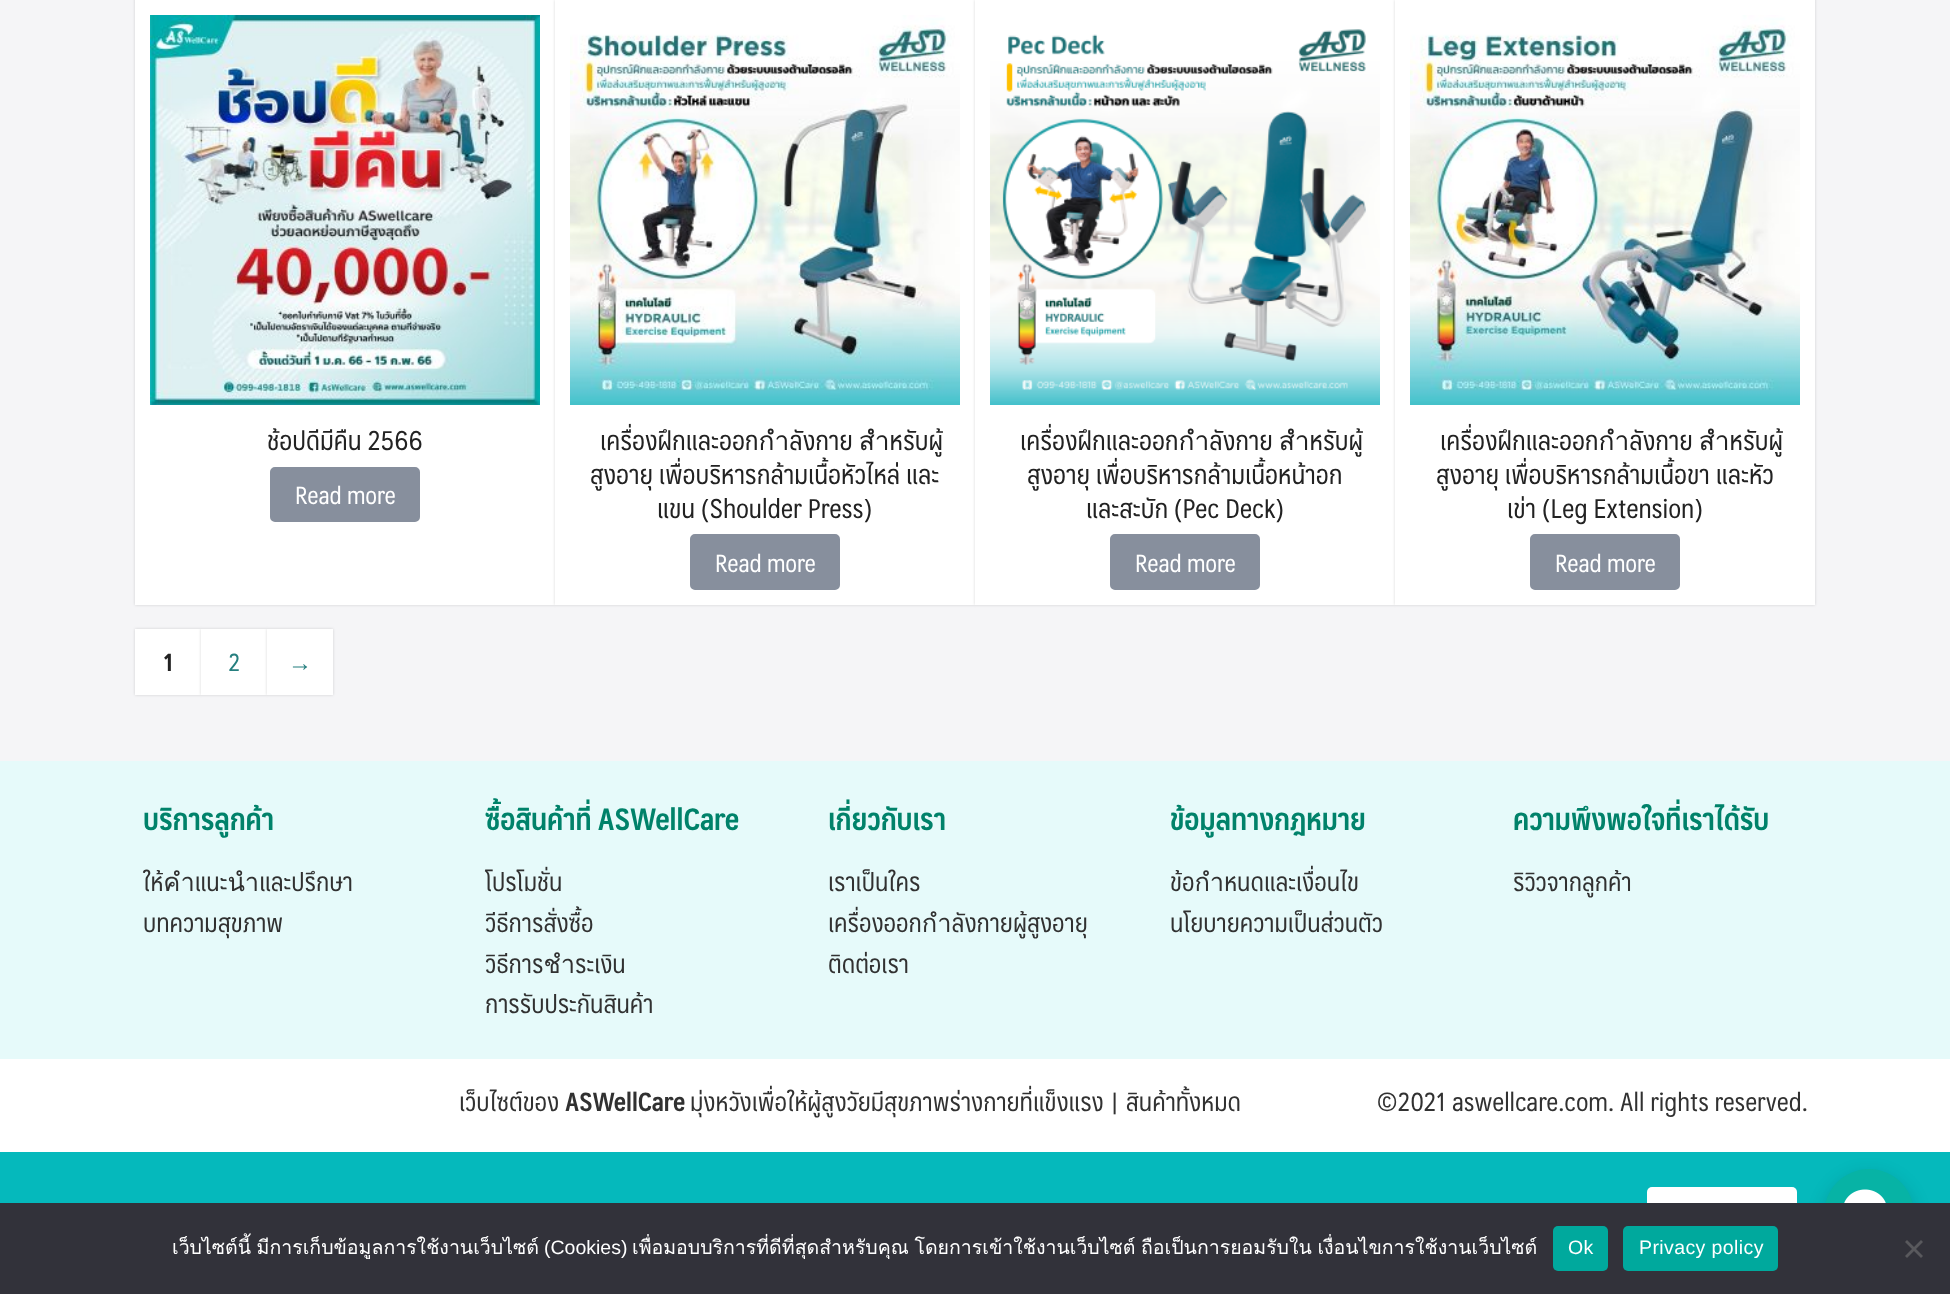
<svg xmlns="http://www.w3.org/2000/svg" width="1950" height="1294">
<style>
.a{font:26.4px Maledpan;fill:#222}
.b{font:24px Maledpan;fill:#fff}
.c{font:bold 24px Maledpan;fill:#222}
.d{font:24px Maledpan;fill:#267f7f}
.e{font:24px Liberation Sans;fill:#267f7f}
.f{font:bold 30px Maledpan;fill:#00826a}
.g{font:25.5px Maledpan;fill:#313131}
.h{font:bold 25.5px Maledpan;fill:#313131}
.i{font:19.5px Loma;fill:#fff}
.j{font:19.5px Liberation Sans;fill:#fff}
.k{font:19.5px Liberation Sans;letter-spacing:0.4px;fill:#fff}
</style>
<rect width="100%" height="100%" fill="#f5f5f7"/>
<path fill="#00000026" filter="blur(1.5px)" d="M135 -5h420v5H135z"/>
<path fill="#00000026" filter="blur(1.5px)" d="M1395 -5h420v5H1395z"/>
<path fill="#00000026" filter="blur(1.5px)" d="M135 0h420v605H135z"/>
<path fill="#fff" d="M135 0h420v605H135z"/>
<image href="1.png" x="150" y="15" width="390" height="390"/>
<rect fill="#878f9d" stroke="#878f9d" stroke-width="2" x="271" y="468" width="148" height="53" rx="4"/>
<path fill="#00000026" filter="blur(1.5px)" d="M555 0h420v605H555z"/>
<path fill="#fff" d="M555 0h420v605H555z"/>
<image href="2.png" x="570" y="15" width="390" height="390"/>
<rect fill="#878f9d" stroke="#878f9d" stroke-width="2" x="691" y="535" width="148" height="54" rx="4"/>
<path fill="#00000026" filter="blur(1.5px)" d="M975 0h420v605H975z"/>
<path fill="#fff" d="M975 0h420v605H975z"/>
<image href="3.png" x="990" y="29" width="390" height="376"/>
<rect fill="#878f9d" stroke="#878f9d" stroke-width="2" x="1111" y="535" width="148" height="54" rx="4"/>
<path fill="#00000026" filter="blur(1.5px)" d="M1395 0h420v605H1395z"/>
<path fill="#fff" d="M1395 0h420v605H1395z"/>
<image href="4.png" x="1410" y="15" width="390" height="390"/>
<rect fill="#878f9d" stroke="#878f9d" stroke-width="2" x="1531" y="535" width="148" height="54" rx="4"/>
<path fill="#00000026" filter="blur(1.5px)" d="M135 629h66v66H135z"/>
<path fill="#fff" d="M135 629h66v66H135z"/>
<path fill="#00000026" filter="blur(1.5px)" d="M201 629h66v66H201z"/>
<path fill="#fff" d="M201 629h66v66H201z"/>
<path fill="#00000026" filter="blur(1.5px)" d="M267 629h66v66H267z"/>
<path fill="#fff" d="M267 629h66v66H267z"/>
<path fill="#e6fafa" d="M0 761h1950v298H0z"/>
<path fill="#fff" d="M0 1059h1950v93H0z"/>
<path fill="#05b9bc" d="M0 1152h1950v51H0z"/>
<rect fill="#00000026" filter="blur(9px)" x="1824" y="1175" width="90" height="90" rx="45"/>
<circle fill="#07b3a5" cx="1869" cy="1214" r="45"/>
<rect fill="#fff" x="1647" y="1187" width="150" height="54" rx="5"/>
<path fill="#32323a" d="M0 1203h1950v91H0z"/>
<rect fill="#00a99d" x="1553" y="1226" width="55" height="45" rx="5"/>
<rect fill="#00a99d" x="1623" y="1226" width="155" height="45" rx="5"/>
<path fill="#59595d" d="M1921 1240l2 2l-16 16l-2-2z"/>
<path fill="#59595d" d="M1905 1242l2-2l16 16l-2 2z"/>
<image href="5.png" x="1844" y="1189" width="42" height="14"/>
<text class="a" x="267" y="450">ช้อปดีมีคืน 2566</text>
<text class="b" x="295" y="504">Read more</text>
<text class="a" x="600" y="450">เครื่องฝึกและออกกำลังกาย สำหรับผู้</text>
<text class="a" x="590" y="484">สูงอายุ เพื่อบริหารกล้ามเนื้อหัวไหล่ และ</text>
<text class="a" x="657" y="518">แขน (Shoulder Press)</text>
<text class="b" x="715" y="572">Read more</text>
<text class="a" x="1020" y="450">เครื่องฝึกและออกกำลังกาย สำหรับผู้</text>
<text class="a" x="1027" y="484">สูงอายุ เพื่อบริหารกล้ามเนื้อหน้าอก</text>
<text class="a" x="1086" y="518">และสะบัก (Pec Deck)</text>
<text class="b" x="1135" y="572">Read more</text>
<text class="a" x="1440" y="450">เครื่องฝึกและออกกำลังกาย สำหรับผู้</text>
<text class="a" x="1436" y="484">สูงอายุ เพื่อบริหารกล้ามเนื้อขา และหัว</text>
<text class="a" x="1507" y="518">เข่า (Leg Extension)</text>
<text class="b" x="1555" y="572">Read more</text>
<text class="c" x="163" y="671">1</text>
<text class="d" x="228" y="671">2</text>
<text class="e" x="288" y="671">→</text>
<text class="f" x="143" y="830">บริการลูกค้า</text>
<text class="g" x="143" y="891">ให้คำแนะนำและปรึกษา</text>
<text class="g" x="143" y="932">บทความสุขภาพ</text>
<text class="f" x="485" y="830">ซื้อสินค้าที่ ASWellCare</text>
<text class="g" x="485" y="891">โปรโมชั่น</text>
<text class="g" x="485" y="932">วีธีการสั่งซื้อ</text>
<text class="g" x="485" y="973">วิธีการชำระเงิน</text>
<text class="g" x="485" y="1013">การรับประกันสินค้า</text>
<text class="f" x="828" y="830">เกี่ยวกับเรา</text>
<text class="g" x="828" y="891">เราเป็นใคร</text>
<text class="g" x="828" y="932">เครื่องออกกำลังกายผู้สูงอายุ</text>
<text class="g" x="828" y="973">ติดต่อเรา</text>
<text class="f" x="1170" y="830">ข้อมูลทางกฎหมาย</text>
<text class="g" x="1170" y="891">ข้อกำหนดและเงื่อนไข</text>
<text class="g" x="1170" y="932">นโยบายความเป็นส่วนตัว</text>
<text class="f" x="1513" y="830">ความพึงพอใจที่เราได้รับ</text>
<text class="g" x="1513" y="891">ริวิวจากลูกค้า</text>
<text class="g" x="459" y="1111">เว็บไซต์ของ</text>
<text class="h" x="565" y="1111">ASWellCare</text>
<text class="g" x="690" y="1111">มุ่งหวังเพื่อให้ผู้สูงวัยมีสุขภาพร่างกายที่แข็งแรง | สินค้าทั้งหมด</text>
<text class="g" x="1377" y="1111">©2021 aswellcare.com. All rights reserved.</text>
<text class="i" x="172" y="1254" word-spacing="-1">เว็บไซต์นี้ มีการเก็บข้อมูลการใช้งานเว็บไซต์</text>
<text class="j" x="544" y="1254">(Cookies)</text>
<text class="i" x="632" y="1254" word-spacing="-1">เพื่อมอบบริการที่ดีที่สุดสำหรับคุณ โดยการเข้าใช้งานเว็บไซต์ ถือเป็นการยอมรับใน เงื่อนไขการใช้งานเว็บไซต์</text>
<text class="k" x="1568" y="1254">Ok</text>
<text class="k" x="1639" y="1254">Privacy policy</text>
</svg>
